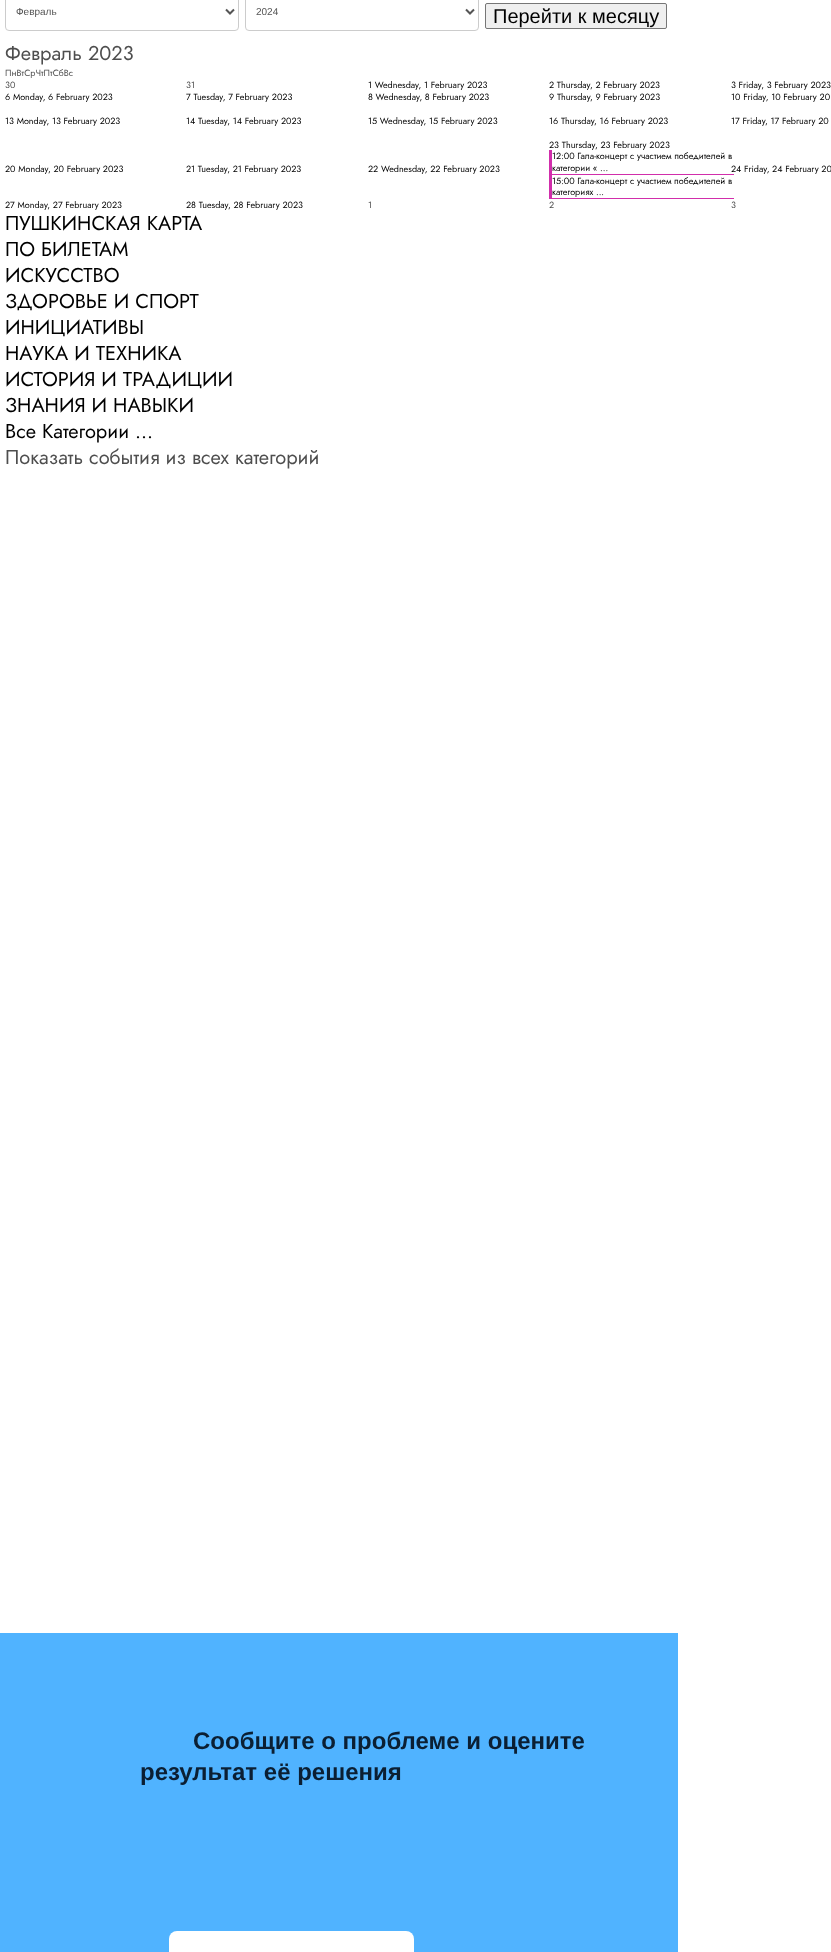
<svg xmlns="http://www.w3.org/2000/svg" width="831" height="1952">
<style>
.a{font:10px Liberation Sans;fill:#555}
.b{font:20px Liberation Sans;fill:#000}
.c{font:20px Jost;fill:#4e4e4e}
.d{font:9px Jost;fill:#4e4e4e}
.e{font:9px Jost;fill:#000}
.f{font:20px Jost;fill:#000}
.g{font:bold 24px Liberation Sans;fill:#0b1f33}
</style>
<rect width="100%" height="100%" fill="#fff"/>
<rect fill="none" stroke="#ccc" x="5.5" y="-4.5" width="233" height="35" rx="3.5"/>
<path fill="none" stroke="#555" stroke-width="2" d="M226 9.5l4 4l4-4"/>
<rect fill="none" stroke="#ccc" x="245.5" y="-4.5" width="233" height="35" rx="3.5"/>
<path fill="none" stroke="#555" stroke-width="2" d="M466 9.5l4 4l4-4"/>
<rect fill="#efefef" stroke="#767676" x="485.5" y="3.5" width="181" height="25" rx="1.5"/>
<path fill="#d12eab" d="M549 174h185v1H549z"/>
<path fill="#d12eab" d="M549 150h3v25H549z"/>
<path fill="#d12eab" d="M549 198h185v1H549z"/>
<path fill="#d12eab" d="M549 175h3v24H549z"/>
<path fill="#50b3ff" d="M0 1633h678v319H0z"/>
<rect fill="#fff" x="169" y="1931" width="245" height="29" rx="8"/>
<text class="a" x="16" y="15">Февраль</text>
<text class="a" x="256" y="15">2024</text>
<text class="b" x="493" y="23">Перейти к месяцу</text>
<text class="c" x="5" y="60">Февраль 2023</text>
<text class="d" x="5" y="76">ПнВтСрЧтПтСбВс</text>
<text class="d" x="5" y="88">30</text>
<text class="d" x="186" y="88">31</text>
<text class="e" x="368" y="88">1 Wednesday, 1 February 2023</text>
<text class="e" x="549" y="88">2 Thursday, 2 February 2023</text>
<text class="e" x="731" y="88">3 Friday, 3 February 2023</text>
<text class="e" x="5" y="100">6 Monday, 6 February 2023</text>
<text class="e" x="186" y="100">7 Tuesday, 7 February 2023</text>
<text class="e" x="368" y="100">8 Wednesday, 8 February 2023</text>
<text class="e" x="549" y="100">9 Thursday, 9 February 2023</text>
<text class="e" x="731" y="100">10 Friday, 10 February 20</text>
<text class="e" x="5" y="124">13 Monday, 13 February 2023</text>
<text class="e" x="186" y="124">14 Tuesday, 14 February 2023</text>
<text class="e" x="368" y="124">15 Wednesday, 15 February 2023</text>
<text class="e" x="549" y="124">16 Thursday, 16 February 2023</text>
<text class="e" x="731" y="124">17 Friday, 17 February 20</text>
<text class="e" x="5" y="172">20 Monday, 20 February 2023</text>
<text class="e" x="186" y="172">21 Tuesday, 21 February 2023</text>
<text class="e" x="368" y="172">22 Wednesday, 22 February 2023</text>
<text class="e" x="549" y="148">23 Thursday, 23 February 2023</text>
<text class="e" x="552" y="159">12:00 Гала-концерт с участием победителей в</text>
<text class="e" x="552" y="171">категории « ...</text>
<text class="e" x="552" y="184">15:00 Гала-концерт с участием победителей в</text>
<text class="e" x="552" y="195">категориях ...</text>
<text class="e" x="731" y="172">24 Friday, 24 February 20</text>
<text class="e" x="5" y="208">27 Monday, 27 February 2023</text>
<text class="e" x="186" y="208">28 Tuesday, 28 February 2023</text>
<text class="d" x="368" y="208">1</text>
<text class="d" x="549" y="208">2</text>
<text class="d" x="731" y="208">3</text>
<text class="f" x="5" y="230">ПУШКИНСКАЯ КАРТА</text>
<text class="f" x="5" y="256">ПО БИЛЕТАМ</text>
<text class="f" x="5" y="282">ИСКУССТВО</text>
<text class="f" x="5" y="308">ЗДОРОВЬЕ И СПОРТ</text>
<text class="f" x="5" y="334">ИНИЦИАТИВЫ</text>
<text class="f" x="5" y="360">НАУКА И ТЕХНИКА</text>
<text class="f" x="5" y="386">ИСТОРИЯ И ТРАДИЦИИ</text>
<text class="f" x="5" y="412">ЗНАНИЯ И НАВЫКИ</text>
<text class="f" x="5" y="438">Все Категории ...</text>
<text class="c" x="5" y="464">Показать события из всех категорий</text>
<text class="g" x="193" y="1749">Сообщите о проблеме и оцените</text>
<text class="g" x="140" y="1780">результат её решения</text>
</svg>
